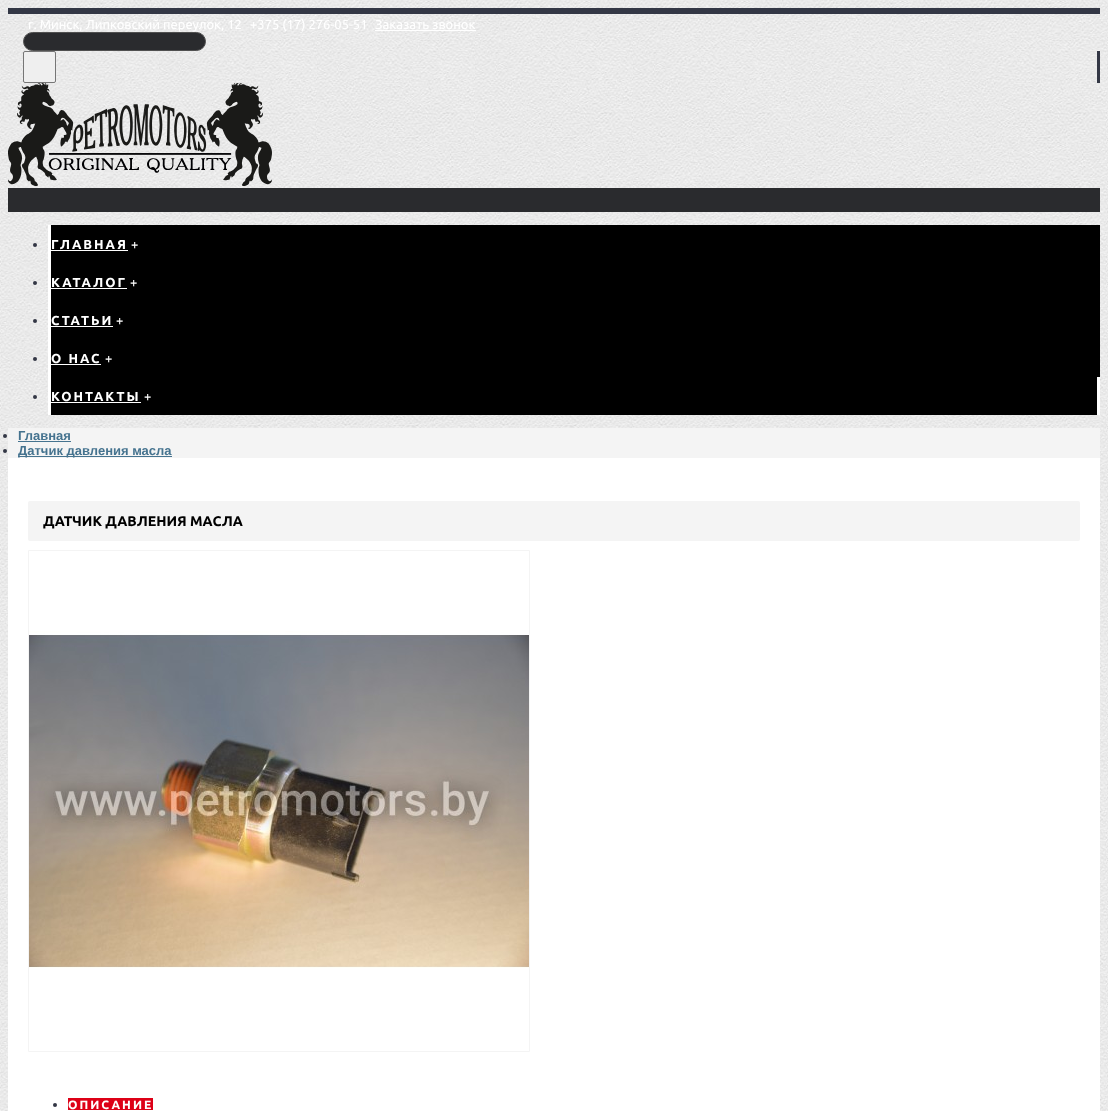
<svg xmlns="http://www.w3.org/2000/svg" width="1108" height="1111">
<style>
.a{font:13px Ubuntu;fill:#fff}
.b{font:bold 13px Ubuntu;letter-spacing:2px;fill:#fff}
.c{font:bold 13px Liberation Sans;fill:#45738f}
.d{font:bold 14px Ubuntu;fill:#000}
.e{font:bold 12px Ubuntu;letter-spacing:2px;fill:#fff}
</style>
<rect width="100%" height="100%" fill="#fff"/>
<image href="1.png" x="0" y="0" width="1108" height="1111"/>
<path fill="#333745" d="M8 8h1092v6H8z"/>
<path fill="#fff" d="M375 30h101v1H375z"/>
<rect fill="#2a2b2e" stroke="#505050" x="23.5" y="32.5" width="182" height="18" rx="9"/>
<path fill="#333745" d="M1097 51h3v32H1097z"/>
<rect fill="#efefef" stroke="#767676" x="23.5" y="51.5" width="32" height="31" rx="1.5"/>
<image href="2.png" x="8" y="83" width="264" height="103"/>
<path fill="#2a2b2e" d="M8 188h1092v24H8z"/>
<path fill="#000" d="M51 225h1049v152H51z"/>
<path fill="#fff" d="M48 225h3v190H48z"/>
<circle fill="#333745" cx="35" cy="245" r="2"/>
<path fill="#fff" d="M51 250h77v1H51z"/>
<circle fill="#333745" cx="35" cy="283" r="2"/>
<path fill="#fff" d="M51 288h76v1H51z"/>
<circle fill="#333745" cx="35" cy="321" r="2"/>
<path fill="#fff" d="M51 326h62v1H51z"/>
<circle fill="#333745" cx="35" cy="359" r="2"/>
<path fill="#fff" d="M51 364h50v1H51z"/>
<path fill="#000" d="M51 377h1046v38H51z"/>
<path fill="#fff" d="M1097 377h3v38H1097z"/>
<circle fill="#333745" cx="35" cy="397" r="2"/>
<path fill="#fff" d="M51 402h90v1H51z"/>
<path fill="#fff" d="M8 458h1092v653H8z"/>
<path fill="#f4f4f4" d="M8 428h1092v30H8z"/>
<circle fill="#333745" cx="5" cy="436" r="2"/>
<path fill="#45738f" d="M18 441h53v1H18z"/>
<circle fill="#333745" cx="5" cy="451" r="2"/>
<path fill="#45738f" d="M18 456h154v1H18z"/>
<rect fill="#f4f4f4" x="28" y="501" width="1052" height="40" rx="2"/>
<path fill="none" stroke="#f4f4f4" d="M28.5 550.5h501v501H28.5z"/>
<image href="3.png" x="29" y="631" width="500" height="337"/>
<circle fill="#333745" cx="55" cy="1105" r="2"/>
<path fill="#dd0017" d="M68 1098h85v12H68z"/>
<text class="a" x="28" y="29">г. Минск, Липковский переулок, 12</text>
<text class="a" x="250" y="29">+375 (17) 276-05-51</text>
<text class="a" x="375" y="29">Заказать звонок</text>
<text class="b" x="51" y="249">ГЛАВНАЯ</text>
<text class="a" x="131" y="249">+</text>
<text class="b" x="51" y="287">КАТАЛОГ</text>
<text class="a" x="130" y="287">+</text>
<text class="b" x="51" y="325">СТАТЬИ</text>
<text class="a" x="116" y="325">+</text>
<text class="b" x="51" y="363">О НАС</text>
<text class="a" x="105" y="363">+</text>
<text class="b" x="51" y="401">КОНТАКТЫ</text>
<text class="a" x="144" y="401">+</text>
<text class="c" x="18" y="440">Главная</text>
<text class="c" x="18" y="455">Датчик давления масла</text>
<text class="d" x="43" y="526">ДАТЧИК ДАВЛЕНИЯ МАСЛА</text>
<text class="e" x="68" y="1109">ОПИСАНИЕ</text>
</svg>
